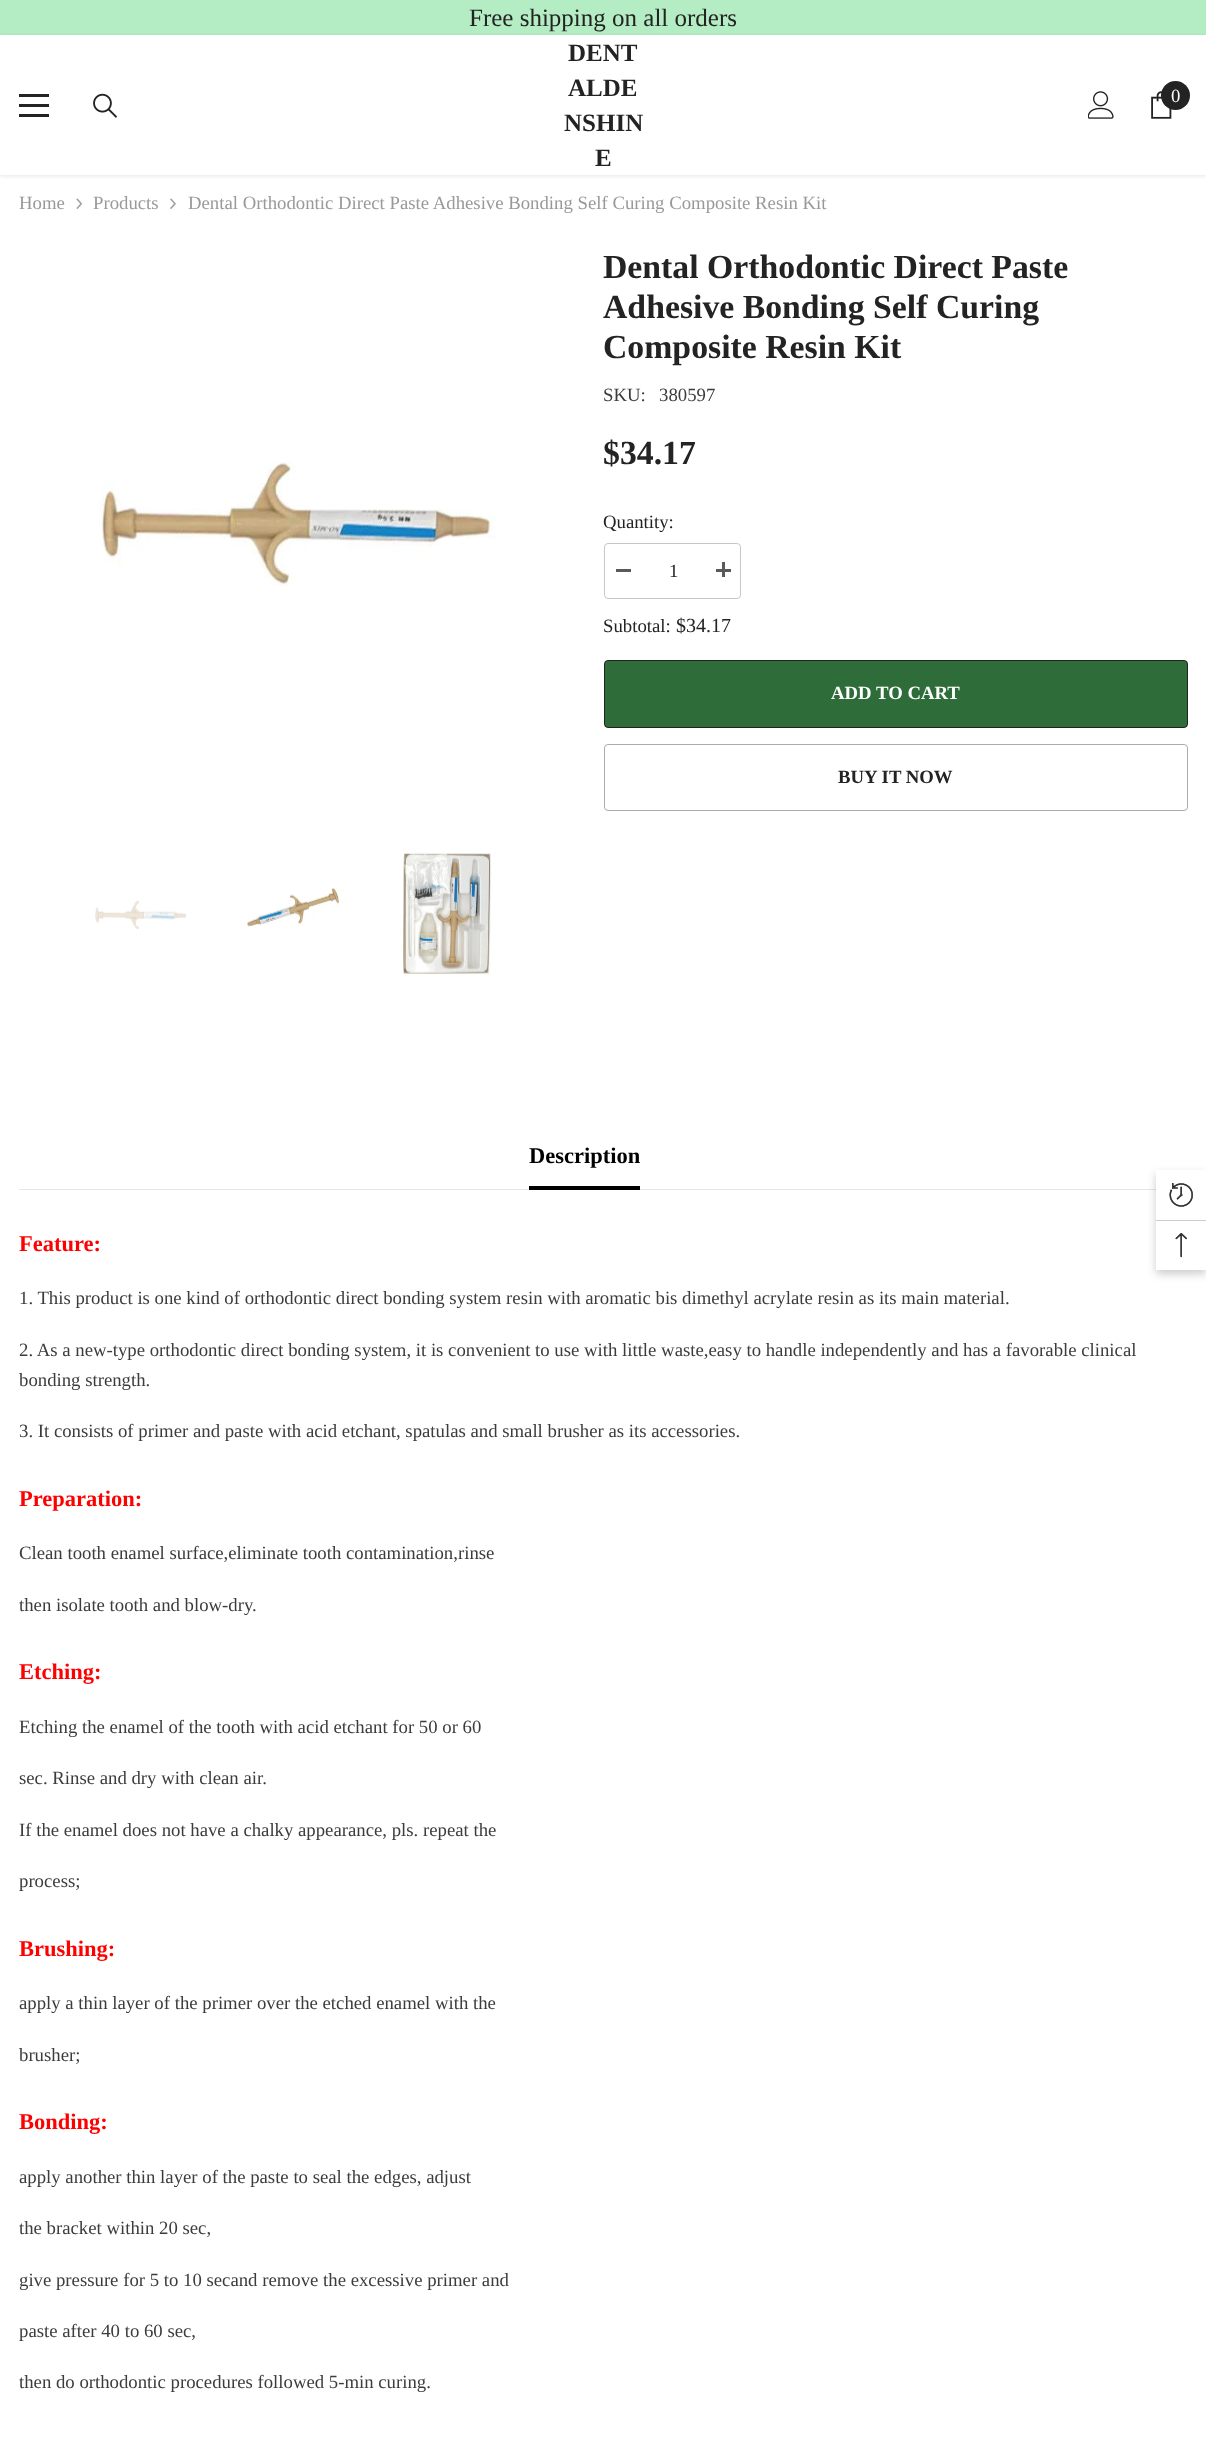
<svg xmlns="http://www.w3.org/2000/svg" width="1206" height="2438">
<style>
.a{font:25px Liberation Serif;fill:#232323}
.b{font:bold 25px Liberation Serif;fill:#232323}
.c{font:18.75px Liberation Serif;fill:#fff}
.d{font:18.75px Liberation Serif;fill:#999}
.e{font:bold 33.75px Liberation Serif;fill:#232323}
.f{font:18.75px Liberation Serif;fill:#3c3c3c}
.g{font:18.75px Liberation Serif;fill:#232323}
.h{font:20px Liberation Serif;fill:#232323}
.i{font:bold 18.75px Liberation Serif;fill:#fff}
.j{font:bold 18.75px Liberation Serif;fill:#232323}
.k{font:bold 22.5px Liberation Serif;fill:#000}
.l{font:bold 22.5px Liberation Serif;fill:#f00}
</style>
<defs>
<clipPath id="clip1"><path d="M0 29h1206v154h-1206zm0 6h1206v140h-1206z" clip-rule="evenodd"/></clipPath>
</defs>
<rect width="100%" height="100%" fill="#fff"/>
<path fill="#b4ecc3" d="M0 0h1206v35H0z"/>
<g clip-path="url(#clip1)">
<path fill="#0000001a" filter="blur(2px)" d="M0 36h1206v140H0z"/>
</g>
<path fill="#232323" d="M19 104h30v3H19z"/>
<path fill="#232323" d="M19 94h30v3H19z"/>
<path fill="#232323" d="M19 114h30v3H19z"/>
<image href="1.png" x="93" y="93" width="25" height="25"/>
<image href="2.png" x="1088" y="91" width="26" height="28"/>
<image href="3.png" x="1151" y="91" width="21" height="28"/>
<circle fill="#232323" cx="1175.5" cy="95.5" r="14.5"/>
<image href="4.png" x="76" y="198" width="7" height="11"/>
<image href="5.png" x="170" y="198" width="6" height="11"/>
<image href="6.png" x="99" y="461" width="397" height="125"/>
<image href="7.png" x="95" y="900" width="92" height="30"/>
<image href="8.png" x="247" y="887" width="92" height="40"/>
<image href="9.png" x="403" y="853" width="88" height="122"/>
<rect fill="none" stroke="#c7c7c7" x="604.5" y="543.5" width="136" height="55" rx="3.5"/>
<path fill="#5a5a5a" d="M616 569h15v3H616z"/>
<path fill="#5a5a5a" d="M716 569h15v3H716z"/>
<path fill="#5a5a5a" d="M722 562h3v15H722z"/>
<rect fill="#2e6c3a" stroke="#232323" x="604.5" y="660.5" width="583" height="67" rx="3.5"/>
<rect fill="none" stroke="#acacac" x="604.5" y="744.5" width="583" height="66" rx="3.5"/>
<path fill="#e6e6e6" d="M19 1189h1137v1H19z"/>
<path fill="#000" d="M529 1186h111v4H529z"/>
<path fill="#00000033" filter="blur(4.5px)" d="M1156 1174h50v100H1156z"/>
<path fill="#fff" d="M1156 1170h50v100H1156z"/>
<image href="10.png" x="1169" y="1183" width="24" height="24"/>
<path fill="#ccc" d="M1156 1220h50v1H1156z"/>
<image href="11.png" x="1175" y="1233" width="12" height="25"/>
<text class="a" x="469" y="26">Free shipping on all orders</text>
<text class="b" x="568" y="61">DENT</text>
<text class="b" x="568" y="96">ALDE</text>
<text class="b" x="564" y="131">NSHIN</text>
<text class="b" x="595" y="166">E</text>
<text class="c" x="1171" y="102">0</text>
<text class="d" x="19" y="209">Home</text>
<text class="d" x="93" y="209">Products</text>
<text class="d" x="188" y="209">Dental Orthodontic Direct Paste Adhesive Bonding Self Curing Composite Resin Kit</text>
<text class="e" x="603" y="278">Dental Orthodontic Direct Paste</text>
<text class="e" x="603" y="318">Adhesive Bonding Self Curing</text>
<text class="e" x="603" y="358">Composite Resin Kit</text>
<text class="f" x="603" y="401">SKU:</text>
<text class="f" x="659" y="401">380597</text>
<text class="e" x="603" y="464">$34.17</text>
<text class="g" x="603" y="528">Quantity:</text>
<text class="g" x="669" y="577">1</text>
<text class="g" x="603" y="632">Subtotal:</text>
<text class="h" x="676" y="632">$34.17</text>
<text class="i" x="831" y="699">ADD TO CART</text>
<text class="j" x="838" y="783">BUY IT NOW</text>
<text class="k" x="529" y="1163">Description</text>
<text class="l" x="19" y="1251">Feature:</text>
<text class="f" x="19" y="1304">1. This product is one kind of orthodontic direct bonding system resin with aromatic bis dimethyl acrylate resin as its main material.</text>
<text class="f" x="19" y="1356">2. As a new-type orthodontic direct bonding system, it is convenient to use with little waste,easy to handle independently and has a favorable clinical</text>
<text class="f" x="19" y="1386">bonding strength.</text>
<text class="f" x="19" y="1437">3. It consists of primer and paste with acid etchant, spatulas and small brusher as its accessories.</text>
<text class="l" x="19" y="1506">Preparation:</text>
<text class="f" x="19" y="1559">Clean tooth enamel surface,eliminate tooth contamination,rinse</text>
<text class="f" x="19" y="1611">then isolate tooth and blow-dry.</text>
<text class="l" x="19" y="1679">Etching:</text>
<text class="f" x="19" y="1733">Etching the enamel of the tooth with acid etchant for 50 or 60</text>
<text class="f" x="19" y="1784">sec. Rinse and dry with clean air.</text>
<text class="f" x="19" y="1836">If the enamel does not have a chalky appearance, pls. repeat the</text>
<text class="f" x="19" y="1887">process;</text>
<text class="l" x="19" y="1956">Brushing:</text>
<text class="f" x="19" y="2009">apply a thin layer of the primer over the etched enamel with the</text>
<text class="f" x="19" y="2061">brusher;</text>
<text class="l" x="19" y="2129">Bonding:</text>
<text class="f" x="19" y="2183">apply another thin layer of the paste to seal the edges, adjust</text>
<text class="f" x="19" y="2234">the bracket within 20 sec,</text>
<text class="f" x="19" y="2286">give pressure for 5 to 10 secand remove the excessive primer and</text>
<text class="f" x="19" y="2337">paste after 40 to 60 sec,</text>
<text class="f" x="19" y="2388">then do orthodontic procedures followed 5-min curing.</text>
</svg>
